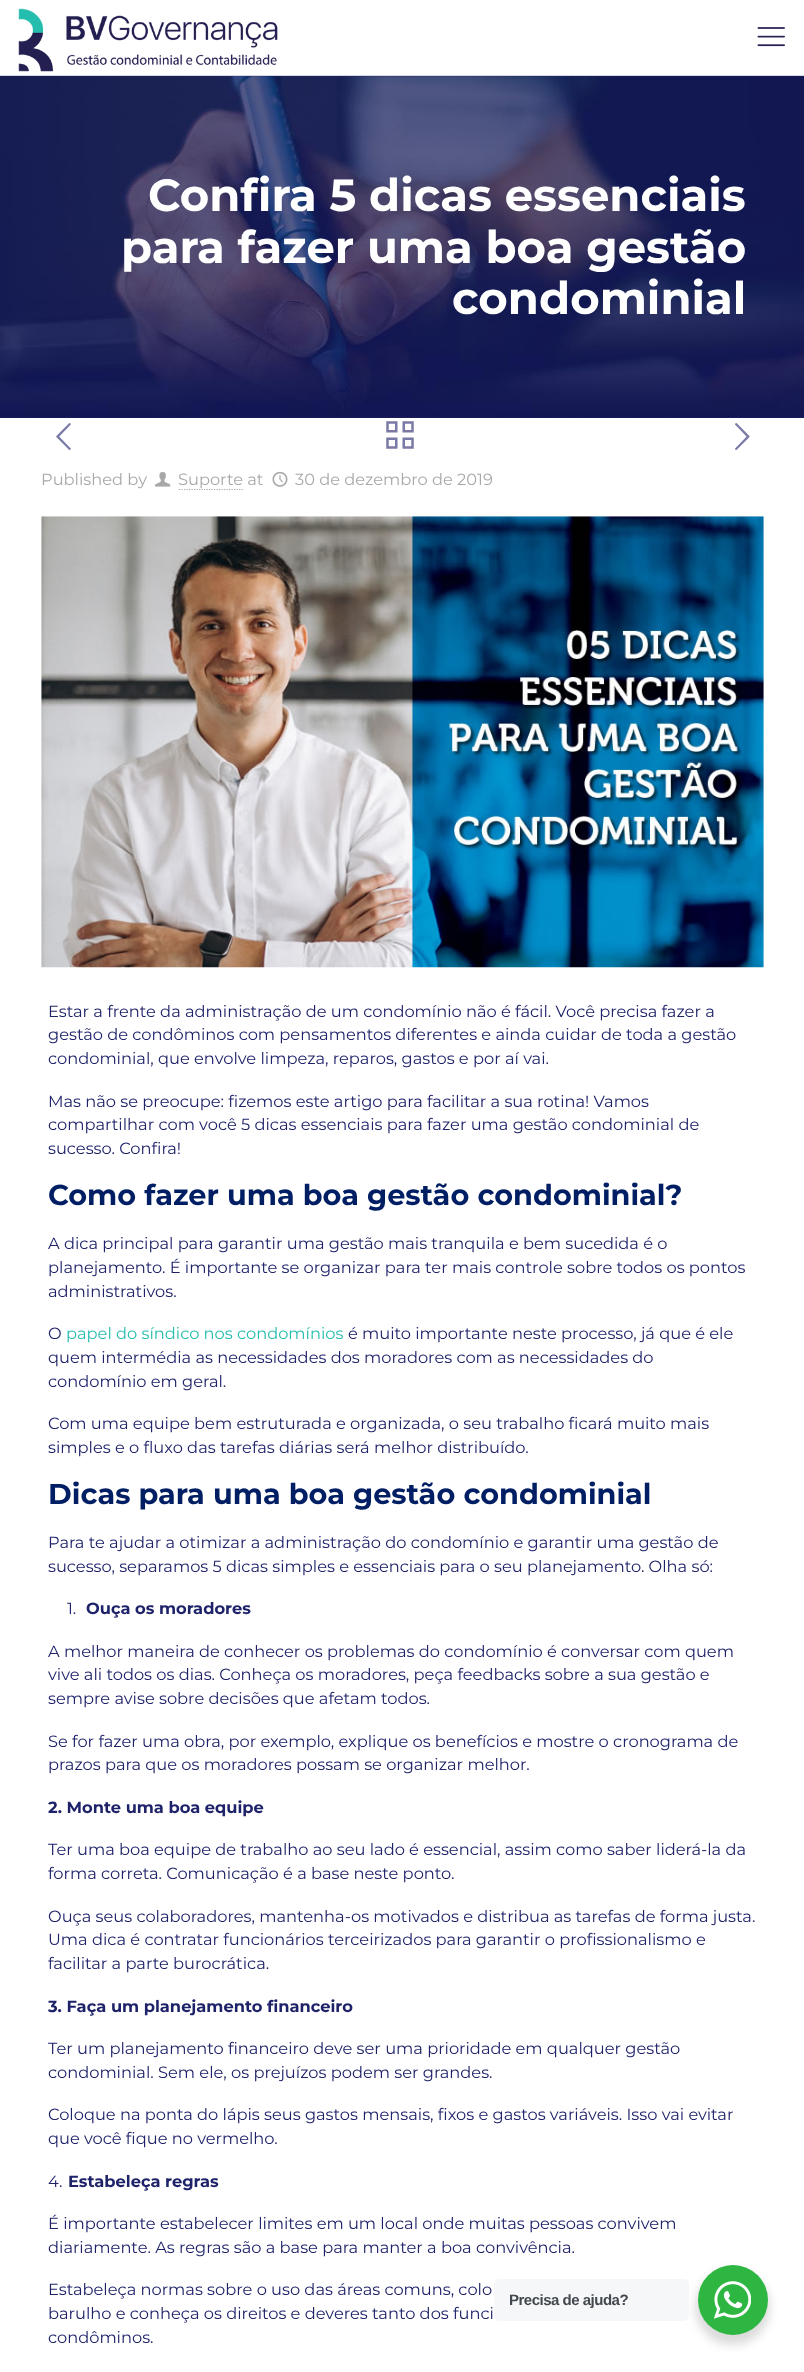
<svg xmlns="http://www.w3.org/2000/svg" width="804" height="2372">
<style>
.a{font:bold 45px Montserrat;fill:#fff}
.b{font:16.25px Montserrat;fill:#a8a8a8}
.c{font:16.25px Montserrat;fill:#1e2269}
.d{font:bold 28.75px Montserrat;fill:#001e63}
.e{font:16.25px Montserrat;fill:#25bdad}
.f{font:bold 16.25px Montserrat;fill:#1e2269}
.g{font:bold 15px Liberation Sans;letter-spacing:-0.5px;fill:#43474e}
</style>
<rect width="100%" height="100%" fill="#fff"/>
<path fill="#d6d8e1" d="M0 75h804v1H0z"/>
<image href="1.png" x="18" y="8" width="260" height="64"/>
<image href="2.png" x="757" y="27" width="28" height="20"/>
<path fill="#1e2269" d="M0 76h804v342H0z"/>
<image href="3.png" x="0" y="76" width="804" height="342"/>
<image href="4.png" x="56" y="423" width="15" height="27"/>
<image href="5.png" x="386" y="421" width="28" height="28"/>
<image href="6.png" x="735" y="423" width="15" height="27"/>
<image href="7.png" x="155" y="472" width="16" height="15"/>
<path fill="none" stroke="#a8a8a8" stroke-width="1.2" stroke-dasharray="1.25 1.25" d="M179 489.5h65"/>
<image href="8.png" x="272" y="471" width="16" height="16"/>
<image href="9.png" x="41" y="516" width="723" height="452"/>
<rect fill="#00000024" filter="blur(5px)" x="695" y="2270" width="75" height="75" rx="37.5"/>
<rect fill="#f5f7f9" x="494" y="2279" width="195" height="42" rx="5"/>
<circle fill="#2db742" cx="733" cy="2300" r="35"/>
<image href="10.png" x="714" y="2281" width="37" height="38"/>
<text class="a" x="148" y="211">Confira 5 dicas essenciais</text>
<text class="a" x="121" y="263">para fazer uma boa gestão</text>
<text class="a" x="452" y="314">condominial</text>
<text class="b" x="41" y="485">Published by</text>
<text class="b" x="178" y="485">Suporte at</text>
<text class="b" x="295" y="485">30 de dezembro de 2019</text>
<text class="c" x="48" y="1017">Estar a frente da administração de um condomínio não é fácil. Você precisa fazer a</text>
<text class="c" x="48" y="1040">gestão de condôminos com pensamentos diferentes e ainda cuidar de toda a gestão</text>
<text class="c" x="48" y="1064">condominial, que envolve limpeza, reparos, gastos e por aí vai.</text>
<text class="c" x="48" y="1107">Mas não se preocupe: fizemos este artigo para facilitar a sua rotina! Vamos</text>
<text class="c" x="48" y="1130">compartilhar com você 5 dicas essenciais para fazer uma gestão condominial de</text>
<text class="c" x="48" y="1154">sucesso. Confira!</text>
<text class="d" x="48" y="1205">Como fazer uma boa gestão condominial?</text>
<text class="c" x="48" y="1249">A dica principal para garantir uma gestão mais tranquila e bem sucedida é o</text>
<text class="c" x="48" y="1273">planejamento. É importante se organizar para ter mais controle sobre todos os pontos</text>
<text class="c" x="48" y="1297">administrativos.</text>
<text class="c" x="48" y="1339">O</text>
<text class="e" x="66" y="1339">papel do síndico nos condomínios</text>
<text class="c" x="348" y="1339">é muito importante neste processo, já que é ele</text>
<text class="c" x="48" y="1363">quem intermédia as necessidades dos moradores com as necessidades do</text>
<text class="c" x="48" y="1387">condomínio em geral.</text>
<text class="c" x="48" y="1429">Com uma equipe bem estruturada e organizada, o seu trabalho ficará muito mais</text>
<text class="c" x="48" y="1453">simples e o fluxo das tarefas diárias será melhor distribuído.</text>
<text class="d" x="48" y="1504">Dicas para uma boa gestão condominial</text>
<text class="c" x="48" y="1548">Para te ajudar a otimizar a administração do condomínio e garantir uma gestão de</text>
<text class="c" x="48" y="1572">sucesso, separamos 5 dicas simples e essenciais para o seu planejamento. Olha só:</text>
<text class="c" x="67" y="1614">1.</text>
<text class="f" x="86" y="1614">Ouça os moradores</text>
<text class="c" x="48" y="1657">A melhor maneira de conhecer os problemas do condomínio é conversar com quem</text>
<text class="c" x="48" y="1680">vive ali todos os dias. Conheça os moradores, peça feedbacks sobre a sua gestão e</text>
<text class="c" x="48" y="1704">sempre avise sobre decisões que afetam todos.</text>
<text class="c" x="48" y="1747">Se for fazer uma obra, por exemplo, explique os benefícios e mostre o cronograma de</text>
<text class="c" x="48" y="1770">prazos para que os moradores possam se organizar melhor.</text>
<text class="f" x="48" y="1813">2. Monte uma boa equipe</text>
<text class="c" x="48" y="1855">Ter uma boa equipe de trabalho ao seu lado é essencial, assim como saber liderá-la da</text>
<text class="c" x="48" y="1879">forma correta. Comunicação é a base neste ponto.</text>
<text class="c" x="48" y="1922">Ouça seus colaboradores, mantenha-os motivados e distribua as tarefas de forma justa.</text>
<text class="c" x="48" y="1945">Uma dica é contratar funcionários terceirizados para garantir o profissionalismo e</text>
<text class="c" x="48" y="1969">facilitar a parte burocrática.</text>
<text class="f" x="48" y="2012">3. Faça um planejamento financeiro</text>
<text class="c" x="48" y="2054">Ter um planejamento financeiro deve ser uma prioridade em qualquer gestão</text>
<text class="c" x="48" y="2078">condominial. Sem ele, os prejuízos podem ser grandes.</text>
<text class="c" x="48" y="2120">Coloque na ponta do lápis seus gastos mensais, fixos e gastos variáveis. Isso vai evitar</text>
<text class="c" x="48" y="2144">que você fique no vermelho.</text>
<text class="c" x="48" y="2187">4.</text>
<text class="f" x="68" y="2187">Estabeleça regras</text>
<text class="c" x="48" y="2229">É importante estabelecer limites em um local onde muitas pessoas convivem</text>
<text class="c" x="48" y="2253">diariamente. As regras são a base para manter a boa convivência.</text>
<text class="c" x="48" y="2295">Estabeleça normas sobre o uso das áreas comuns, colo</text>
<text class="c" x="48" y="2319">barulho e conheça os direitos e deveres tanto dos funci</text>
<text class="c" x="48" y="2343">condôminos.</text>
<text class="g" x="509" y="2305">Precisa de ajuda?</text>
</svg>
